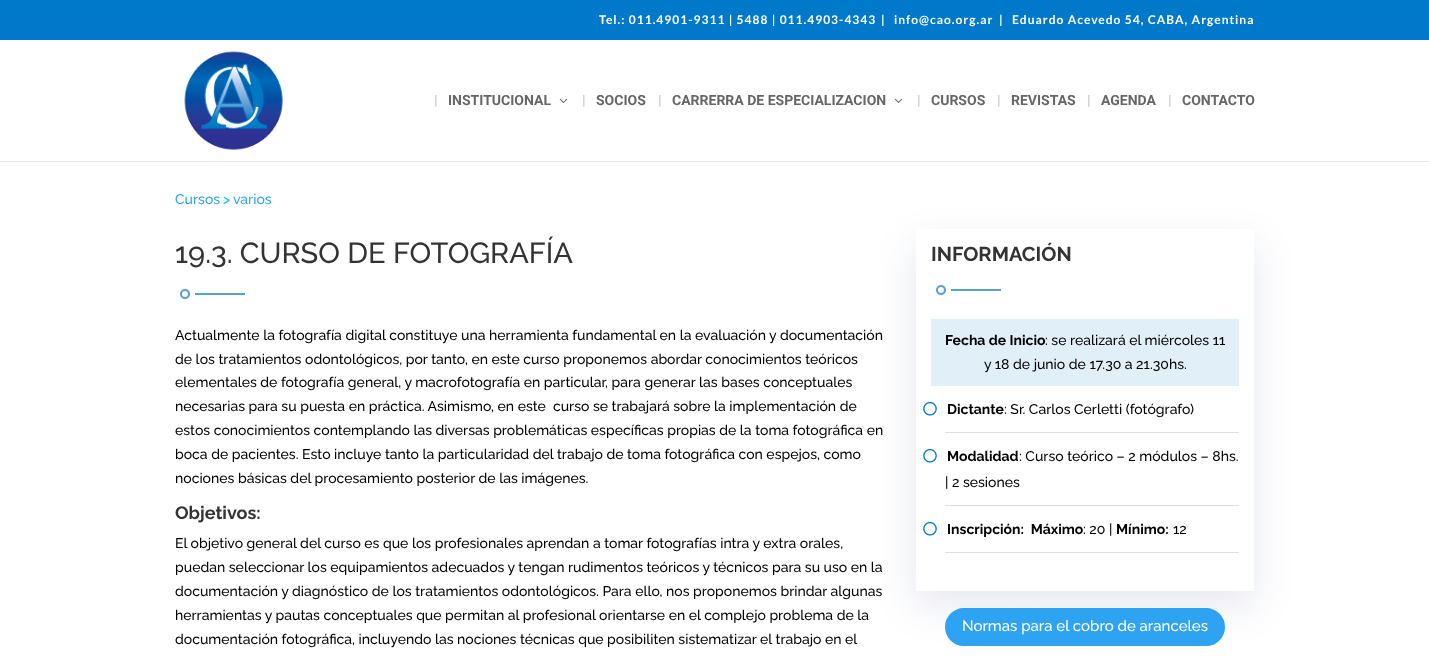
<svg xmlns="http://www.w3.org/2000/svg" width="1429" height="657">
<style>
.a{font:bold 12px Lato;letter-spacing:1px;fill:#fff}
.b{font:bold 14px Roboto;fill:#ccc}
.c{font:bold 14px Roboto;fill:#666}
.d{font:500 14px Raleway;fill:#2ea3f2}
.e{font:500 14px Raleway;fill:#0cf}
.f{font:500 29px Raleway;fill:#333}
.g{font:500 14px Raleway;fill:#000}
.h{font:bold 18px Raleway;fill:#333}
.i{font:bold 20px Raleway;fill:#333}
.j{font:bold 14px Raleway;fill:#000}
.k{font:500 15px Raleway;fill:#fff}
</style>
<defs>
<clipPath id="clip1"><path d="M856 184h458v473h-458zm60 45h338v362h-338z" clip-rule="evenodd"/></clipPath>
</defs>
<rect width="100%" height="100%" fill="#fff"/>
<path fill="#0079ca" d="M0 0h1429v40H0z"/>
<path fill="#e6e6e6" d="M0 161h1429v1H0z"/>
<image href="1.png" x="184" y="51" width="99" height="99"/>
<image href="2.png" x="559" y="98" width="9" height="5"/>
<image href="2.png" x="894" y="98" width="9" height="5"/>
<image href="3.png" x="180" y="289" width="65" height="10"/>
<g clip-path="url(#clip1)">
<path fill="#08126d1a" filter="blur(19.5px)" d="M916 244h338v362H916z"/>
</g>
<image href="3.png" x="936" y="285" width="65" height="10"/>
<path fill="#e1eff9" d="M931 319h308v67H931z"/>
<path fill="#dee2e6" d="M945 432h294v1H945z"/>
<image href="4.png" x="923" y="402" width="14" height="14"/>
<path fill="#dee2e6" d="M945 505h294v1H945z"/>
<image href="4.png" x="923" y="449" width="14" height="14"/>
<path fill="#dee2e6" d="M945 552h294v1H945z"/>
<image href="4.png" x="923" y="522" width="14" height="14"/>
<rect fill="#2ea3f2" stroke="#2ea3f2" stroke-width="2" x="946" y="609" width="278" height="36" rx="18"/>
<text class="a" x="599" y="24">Tel.: 011.4901-9311 | 5488 | 011.4903-4343</text>
<text class="a" x="881" y="24">|</text>
<text class="a" x="894" y="24">info@cao.org.ar</text>
<text class="a" x="999" y="24">|</text>
<text class="a" x="1012" y="24">Eduardo Acevedo 54, CABA, Argentina</text>
<text class="b" x="434" y="105">|</text>
<text class="c" x="448" y="105">INSTITUCIONAL</text>
<text class="b" x="582" y="105">|</text>
<text class="c" x="596" y="105">SOCIOS</text>
<text class="b" x="658" y="105">|</text>
<text class="c" x="672" y="105">CARRERRA DE ESPECIALIZACION</text>
<text class="b" x="917" y="105">|</text>
<text class="c" x="931" y="105">CURSOS</text>
<text class="b" x="997" y="105">|</text>
<text class="c" x="1011" y="105">REVISTAS</text>
<text class="b" x="1087" y="105">|</text>
<text class="c" x="1101" y="105">AGENDA</text>
<text class="b" x="1168" y="105">|</text>
<text class="c" x="1182" y="105">CONTACTO</text>
<text class="d" x="175" y="204">Cursos</text>
<text class="e" x="223" y="204">&gt;</text>
<text class="d" x="233" y="204">varios</text>
<text class="f" x="175" y="263">19.3. CURSO DE FOTOGRAFÍA</text>
<text class="g" x="175" y="340">Actualmente la fotografía digital constituye una herramienta fundamental en la evaluación y documentación</text>
<text class="g" x="175" y="364">de los tratamientos odontológicos, por tanto, en este curso proponemos abordar conocimientos teóricos</text>
<text class="g" x="175" y="387">elementales de fotografía general, y macrofotografía en particular, para generar las bases conceptuales</text>
<text class="g" xml:space="preserve" x="175" y="411">necesarias para su puesta en práctica. Asimismo, en este  curso se trabajará sobre la implementación de</text>
<text class="g" x="175" y="435">estos conocimientos contemplando las diversas problemáticas específicas propias de la toma fotográfica en</text>
<text class="g" x="175" y="459">boca de pacientes. Esto incluye tanto la particularidad del trabajo de toma fotográfica con espejos, como</text>
<text class="g" x="175" y="483">nociones básicas del procesamiento posterior de las imágenes.</text>
<text class="h" x="175" y="519">Objetivos:</text>
<text class="g" x="175" y="548">El objetivo general del curso es que los profesionales aprendan a tomar fotografías intra y extra orales,</text>
<text class="g" x="175" y="572">puedan seleccionar los equipamientos adecuados y tengan rudimentos teóricos y técnicos para su uso en la</text>
<text class="g" x="175" y="596">documentación y diagnóstico de los tratamientos odontológicos. Para ello, nos proponemos brindar algunas</text>
<text class="g" x="175" y="620">herramientas y pautas conceptuales que permitan al profesional orientarse en el complejo problema de la</text>
<text class="g" x="175" y="644">documentación fotográfica, incluyendo las nociones técnicas que posibiliten sistematizar el trabajo en el</text>
<text class="i" x="931" y="261">INFORMACIÓN</text>
<text class="j" x="945" y="345">Fecha de Inicio</text>
<text class="g" x="1045" y="345">: se realizará el miércoles 11</text>
<text class="g" x="984" y="369">y 18 de junio de 17.30 a 21.30hs.</text>
<text class="j" x="947" y="414">Dictante</text>
<text class="g" x="1004" y="414">: Sr. Carlos Cerletti (fotógrafo)</text>
<text class="j" x="947" y="461">Modalidad</text>
<text class="g" x="1019" y="461">: Curso teórico – 2 módulos – 8hs.</text>
<text class="g" x="945" y="487">| 2 sesiones</text>
<text class="j" xml:space="preserve" x="947" y="534">Inscripción:  Máximo</text>
<text class="g" x="1083" y="534">: 20 |</text>
<text class="j" x="1116" y="534">Mínimo:</text>
<text class="g" x="1173" y="534">12</text>
<text class="k" x="962" y="631">Normas para el cobro de aranceles</text>
</svg>
